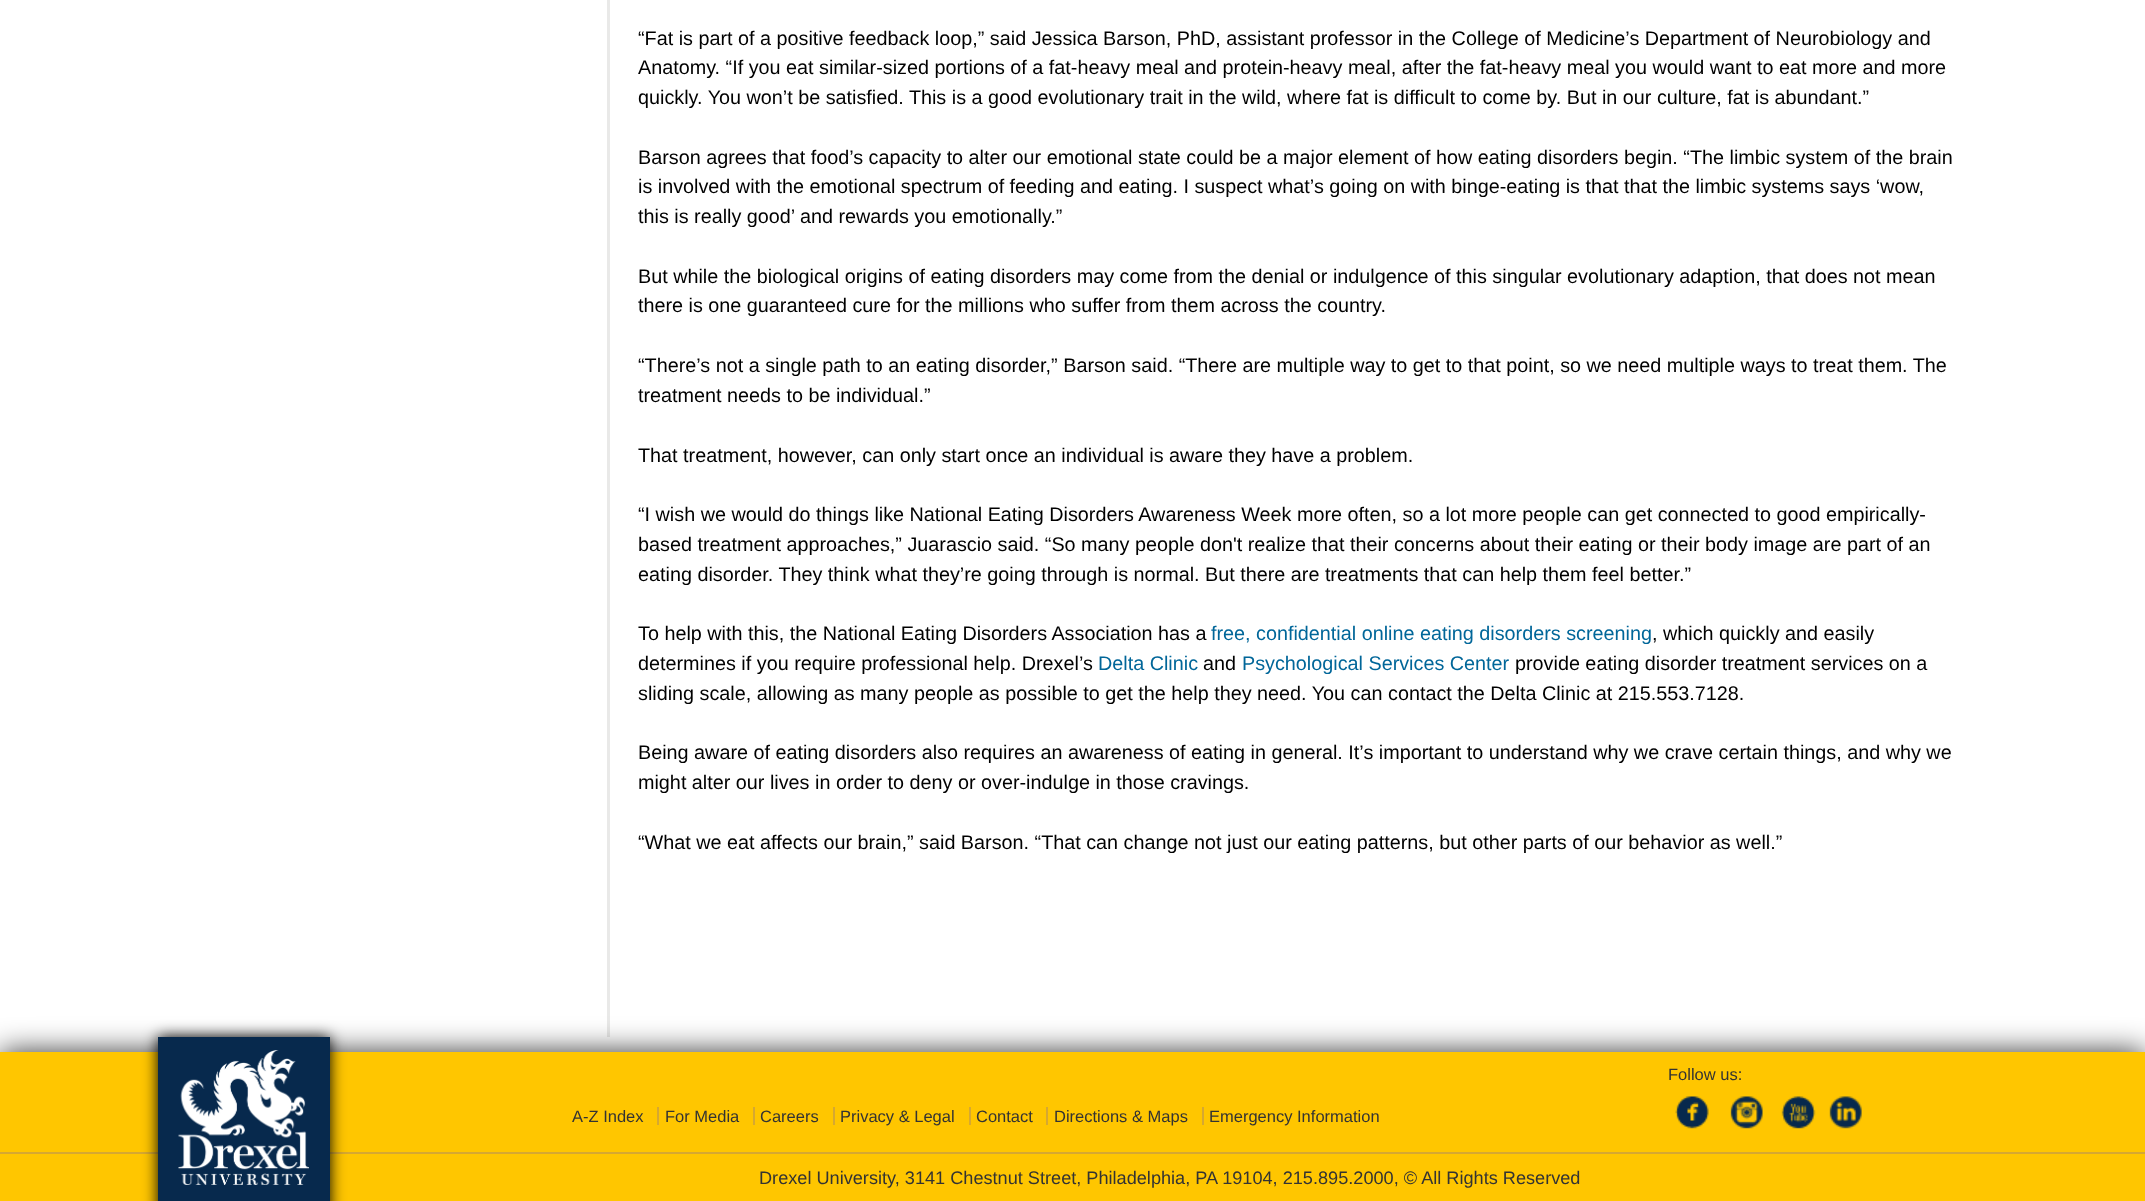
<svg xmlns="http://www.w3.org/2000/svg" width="2145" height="1201">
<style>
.a{font:19.8px Liberation Sans;fill:#000}
.b{font:19.8px Liberation Sans;fill:#069}
.c{font:16.5px Liberation Sans;fill:#333}
.d{font:18.15px Liberation Sans;fill:#333}
</style>
<rect width="100%" height="100%" fill="#fff"/>
<path fill="#e9e9e8" d="M607 0h3v1037H607z"/>
<path fill="#000000cc" filter="blur(15px)" d="M0 1052h2145v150H0z"/>
<path fill="#ffc600" d="M0 1052h2145v149H0z"/>
<path fill="#d6a831" d="M0 1152h2145v2H0z"/>
<path fill="#000" filter="blur(7.5px)" d="M158 1037h172v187H158z"/>
<path fill="#07294d" d="M158 1037h172v164H158z"/>
<image href="1.png" x="178" y="1050" width="131" height="135"/>
<image href="2.png" x="1675" y="1096" width="34" height="33"/>
<image href="3.png" x="1730" y="1096" width="33" height="33"/>
<image href="4.png" x="1781" y="1096" width="35" height="33"/>
<image href="5.png" x="1829" y="1096" width="33" height="33"/>
<path fill="#d6a831" d="M657 1107h2v18H657z"/>
<path fill="#d6a831" d="M753 1107h2v18H753z"/>
<path fill="#d6a831" d="M833 1107h2v18H833z"/>
<path fill="#d6a831" d="M969 1107h2v18H969z"/>
<path fill="#d6a831" d="M1046 1107h2v18H1046z"/>
<path fill="#d6a831" d="M1202 1107h2v18H1202z"/>
<text class="a" x="638" y="45">“Fat is part of a positive feedback loop,” said Jessica Barson, PhD, assistant professor in the College of Medicine’s Department of Neurobiology and</text>
<text class="a" x="638" y="74">Anatomy. “If you eat similar-sized portions of a fat-heavy meal and protein-heavy meal, after the fat-heavy meal you would want to eat more and more</text>
<text class="a" x="638" y="104">quickly. You won’t be satisfied. This is a good evolutionary trait in the wild, where fat is difficult to come by. But in our culture, fat is abundant.”</text>
<text class="a" x="638" y="164">Barson agrees that food’s capacity to alter our emotional state could be a major element of how eating disorders begin. “The limbic system of the brain</text>
<text class="a" x="638" y="193">is involved with the emotional spectrum of feeding and eating. I suspect what’s going on with binge-eating is that that the limbic systems says ‘wow,</text>
<text class="a" x="638" y="223">this is really good’ and rewards you emotionally.”</text>
<text class="a" x="638" y="283">But while the biological origins of eating disorders may come from the denial or indulgence of this singular evolutionary adaption, that does not mean</text>
<text class="a" x="638" y="312">there is one guaranteed cure for the millions who suffer from them across the country.</text>
<text class="a" x="638" y="372">“There’s not a single path to an eating disorder,” Barson said. “There are multiple way to get to that point, so we need multiple ways to treat them. The</text>
<text class="a" x="638" y="402">treatment needs to be individual.”</text>
<text class="a" x="638" y="462">That treatment, however, can only start once an individual is aware they have a problem.</text>
<text class="a" x="638" y="521">“I wish we would do things like National Eating Disorders Awareness Week more often, so a lot more people can get connected to good empirically-</text>
<text class="a" x="638" y="551">based treatment approaches,” Juarascio said. “So many people don't realize that their concerns about their eating or their body image are part of an</text>
<text class="a" x="638" y="581">eating disorder. They think what they’re going through is normal. But there are treatments that can help them feel better.”</text>
<text class="a" x="638" y="640">To help with this, the National Eating Disorders Association has a</text>
<text class="b" x="1211" y="640">free, confidential online eating disorders screening</text>
<text class="a" x="1652" y="640">, which quickly and easily</text>
<text class="a" x="638" y="670">determines if you require professional help. Drexel’s</text>
<text class="b" x="1098" y="670">Delta Clinic</text>
<text class="a" x="1203" y="670">and</text>
<text class="b" x="1242" y="670">Psychological Services Center</text>
<text class="a" x="1515" y="670">provide eating disorder treatment services on a</text>
<text class="a" x="638" y="700">sliding scale, allowing as many people as possible to get the help they need. You can contact the Delta Clinic at 215.553.7128.</text>
<text class="a" x="638" y="759">Being aware of eating disorders also requires an awareness of eating in general. It’s important to understand why we crave certain things, and why we</text>
<text class="a" x="638" y="789">might alter our lives in order to deny or over-indulge in those cravings.</text>
<text class="a" x="638" y="849">“What we eat affects our brain,” said Barson. “That can change not just our eating patterns, but other parts of our behavior as well.”</text>
<text class="c" x="1668" y="1080">Follow us:</text>
<text class="c" x="572" y="1122">A-Z Index</text>
<text class="c" x="665" y="1122">For Media</text>
<text class="c" x="760" y="1122">Careers</text>
<text class="c" x="840" y="1122">Privacy &amp; Legal</text>
<text class="c" x="976" y="1122">Contact</text>
<text class="c" x="1054" y="1122">Directions &amp; Maps</text>
<text class="c" x="1209" y="1122">Emergency Information</text>
<text class="d" x="759" y="1184">Drexel University, 3141 Chestnut Street, Philadelphia, PA 19104, 215.895.2000, © All Rights Reserved</text>
</svg>
